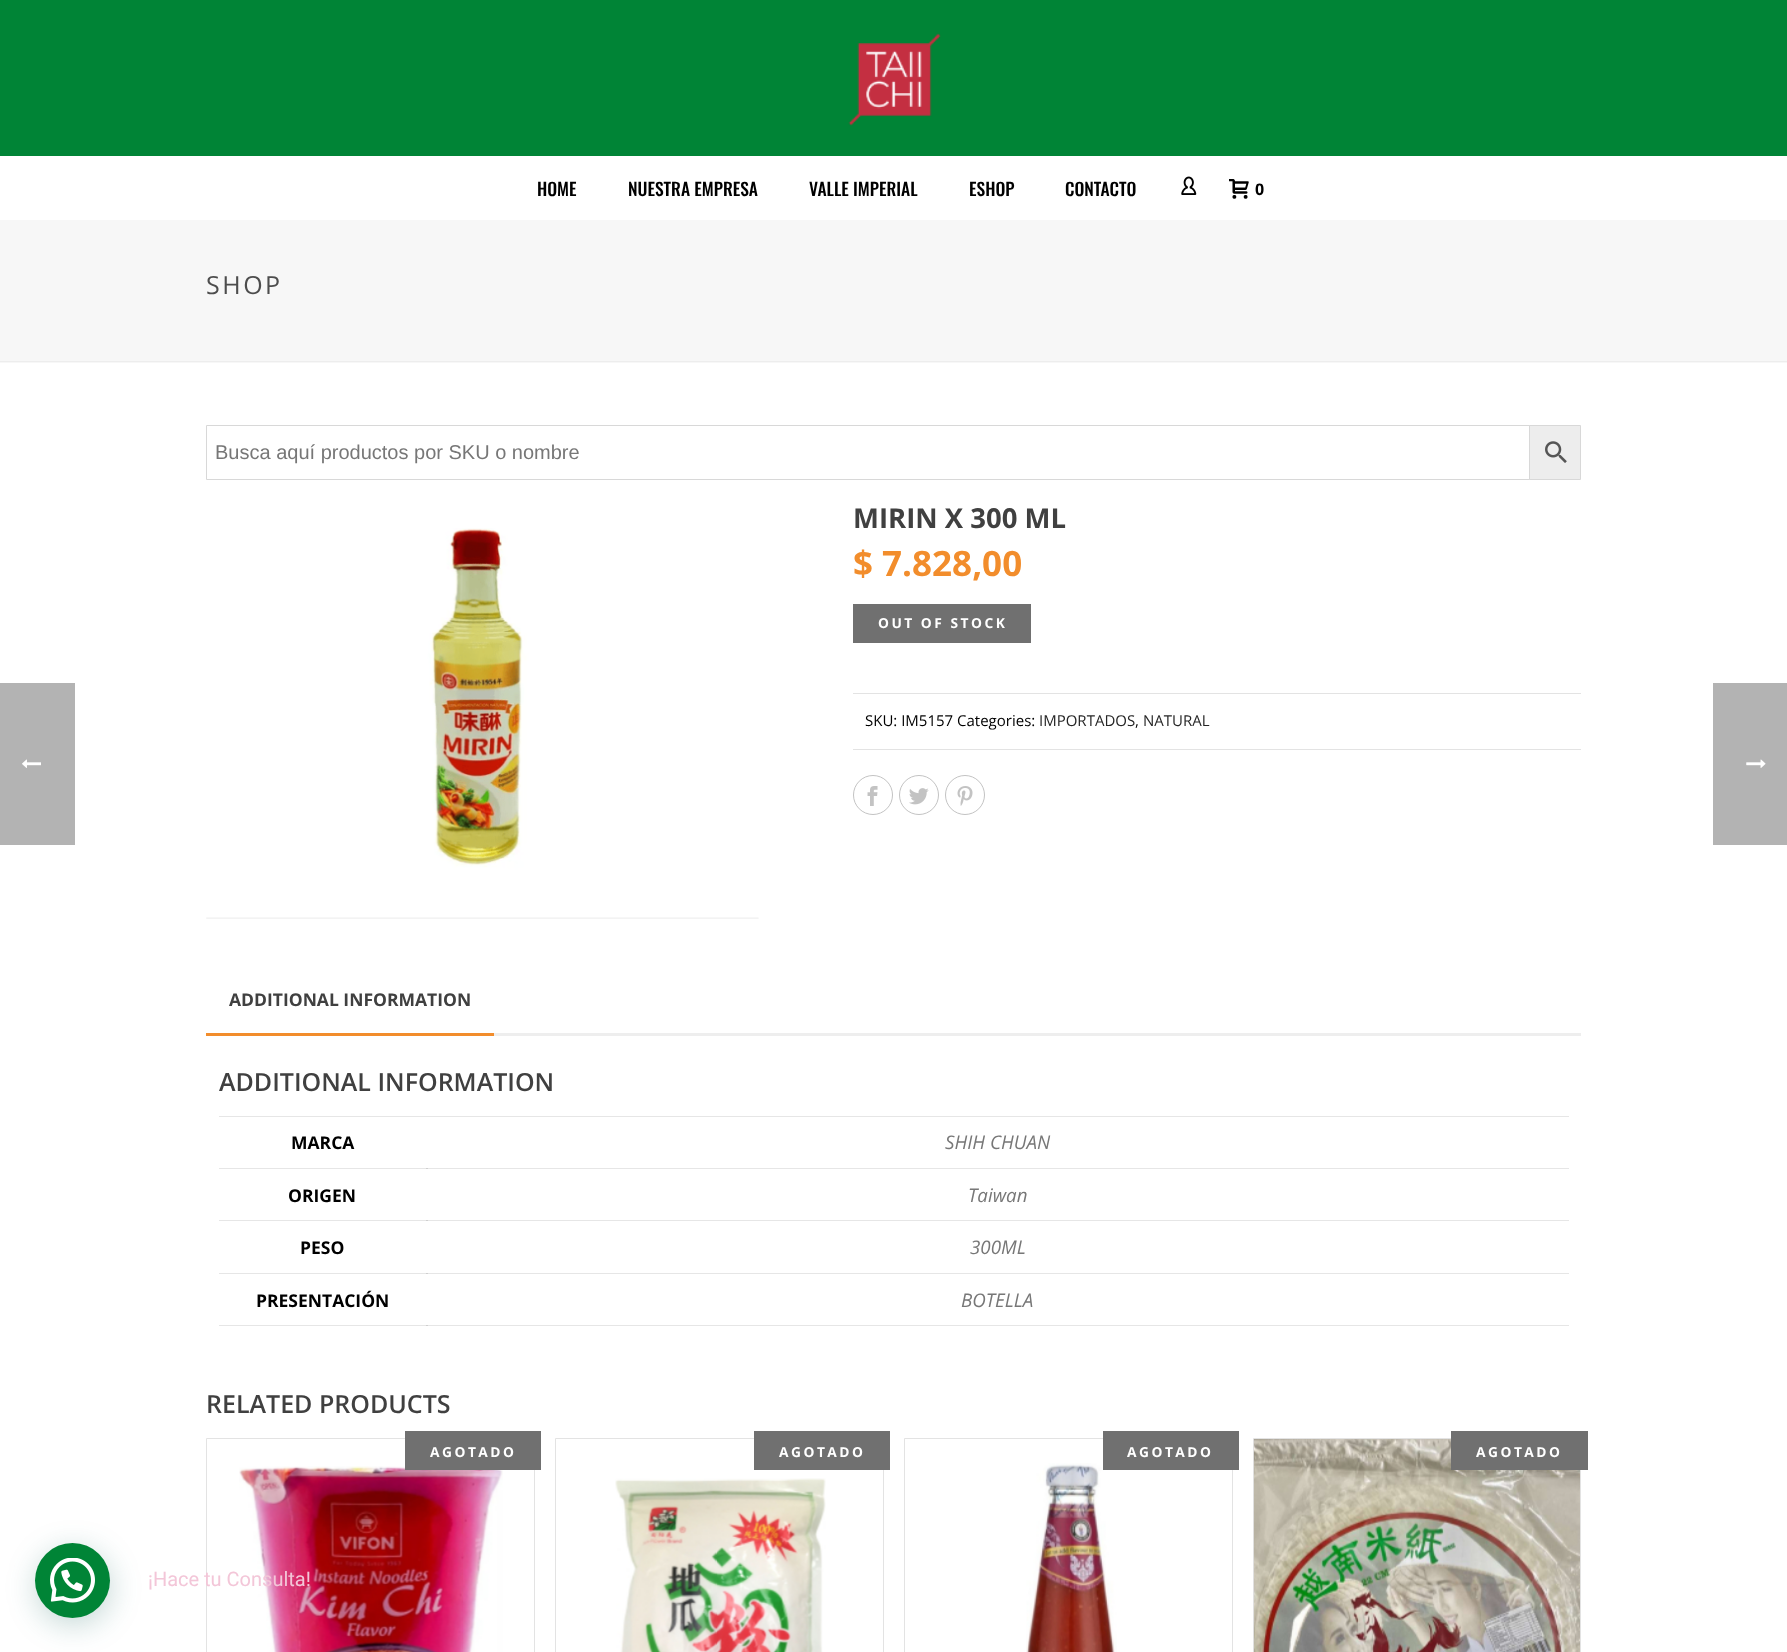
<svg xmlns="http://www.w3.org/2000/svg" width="1787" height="1652">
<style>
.a{font:500 17.5px Oswald;fill:#000}
.b{font:bold 16px Open Sans;fill:#000}
.c{font:25px Open Sans;letter-spacing:2.5px;fill:#4d4d4d}
.d{font:20px Liberation Sans;fill:#777}
.e{font:bold 27.5px Open Sans;fill:#404040}
.f{font:bold 35px Open Sans;fill:#f28d2c}
.g{font:bold 13.75px Open Sans;letter-spacing:2.5px;fill:#fff}
.h{font:15px Open Sans;fill:#000}
.i{font:15px Open Sans;fill:#252525}
.j{font:bold 17.5px Open Sans;fill:#404040}
.k{font:600 25px Open Sans;fill:#404040}
.l{font:bold 17.5px Open Sans;fill:#000}
.m{font:italic 18.75px Open Sans;fill:#777}
.n{font:20px Roboto;fill:#f3c6d8}
</style>
<rect width="100%" height="100%" fill="#fff"/>
<path fill="#e6e6e6" d="M219 1168h1350v1H219z"/>
<path fill="#e6e6e6" d="M219 1220h1350v1H219z"/>
<path fill="#e6e6e6" d="M219 1273h1350v1H219z"/>
<path fill="#e6e6e6" d="M219 1325h1350v1H219z"/>
<path fill="#b3b3b3" d="M0 683h75v162H0z"/>
<image href="1.png" x="22" y="759" width="19" height="9"/>
<path fill="#f7f7f7" d="M0 220h1787v143H0z"/>
<path fill="#ededed" d="M0 361h1787v1H0z"/>
<path fill="#008436" d="M0 0h1787v156H0z"/>
<image href="2.png" x="848" y="33" width="93" height="93"/>
<image href="3.png" x="1181" y="176" width="16" height="19"/>
<image href="4.png" x="1229" y="179" width="20" height="20"/>
<path fill="#ededed" stroke="#d8d8d8" d="M1529.5 425.5h51v54H1529.5z"/>
<path fill="none" stroke="#d8d8d8" d="M206.5 425.5h1323v54H206.5z"/>
<image href="5.png" x="1545" y="441" width="22" height="22"/>
<image href="6.png" x="206" y="528" width="553" height="391"/>
<path fill="#707070" d="M853 604h178v39H853z"/>
<path fill="#e3e3e3" d="M853 693h728v1H853z"/>
<path fill="#e3e3e3" d="M853 749h728v1H853z"/>
<circle fill="none" stroke="#c3c3c3" cx="873" cy="795" r="19.5"/>
<image href="7.png" x="867" y="786" width="11" height="20"/>
<circle fill="none" stroke="#c3c3c3" cx="919" cy="795" r="19.5"/>
<image href="8.png" x="909" y="788" width="20" height="17"/>
<circle fill="none" stroke="#c3c3c3" cx="965" cy="795" r="19.5"/>
<image href="9.png" x="957" y="786" width="16" height="20"/>
<path fill="#eee" d="M494 1033h1087v3H494z"/>
<path fill="#f28d2c" d="M206 1033h288v3H206z"/>
<path fill="#e6e6e6" d="M219 1116h1350v1H219z"/>
<path fill="#cfcfcf" d="M426 1168h2v1H426z"/>
<path fill="#cfcfcf" d="M426 1220h2v1H426z"/>
<path fill="#cfcfcf" d="M426 1273h2v1H426z"/>
<path fill="#cfcfcf" d="M426 1325h2v1H426z"/>
<path fill="none" stroke="#e3e3e3" d="M206.5 1438.5h328v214H206.5z"/>
<image href="10.png" x="239" y="1466" width="264" height="186"/>
<path fill="#707070" d="M405 1431h136v39H405z"/>
<path fill="none" stroke="#e3e3e3" d="M555.5 1438.5h328v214H555.5z"/>
<path fill="#707070" d="M754 1431h136v39H754z"/>
<image href="11.png" x="615" y="1478" width="211" height="174"/>
<path fill="none" stroke="#e3e3e3" d="M904.5 1438.5h328v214H904.5z"/>
<image href="12.png" x="1026" y="1463" width="91" height="189"/>
<path fill="#707070" d="M1103 1431h136v39H1103z"/>
<path fill="none" stroke="#e3e3e3" d="M1253.5 1438.5h327v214H1253.5z"/>
<image href="13.png" x="1253" y="1439" width="327" height="213"/>
<path fill="#707070" d="M1451 1431h137v39H1451z"/>
<path fill="#b3b3b3" d="M1713 683h74v162H1713z"/>
<image href="14.png" x="1746" y="759" width="20" height="9"/>
<rect fill="#075e543d" filter="blur(15px)" x="36" y="1550" width="75" height="75" rx="37.5"/>
<circle fill="#008436" cx="72.5" cy="1580.5" r="37.5"/>
<image href="15.png" x="50" y="1558" width="45" height="45"/>
<text class="a" x="537" y="196">HOME</text>
<text class="a" x="628" y="196">NUESTRA EMPRESA</text>
<text class="a" x="809" y="196">VALLE IMPERIAL</text>
<text class="a" x="969" y="196">ESHOP</text>
<text class="a" x="1065" y="196">CONTACTO</text>
<text class="b" x="1255" y="195">0</text>
<text class="c" x="206" y="294">SHOP</text>
<text class="d" x="215" y="459">Busca aquí productos por SKU o nombre</text>
<text class="e" x="853" y="528">MIRIN X 300 ML</text>
<text class="f" x="853" y="576">$ 7.828,00</text>
<text class="g" x="878" y="628">OUT OF STOCK</text>
<text class="h" x="865" y="726">SKU: IM5157 Categories:</text>
<text class="i" x="1039" y="726">IMPORTADOS</text>
<text class="h" x="1135" y="726">,</text>
<text class="i" x="1143" y="726">NATURAL</text>
<text class="j" x="229" y="1006">ADDITIONAL INFORMATION</text>
<text class="k" x="219" y="1091">ADDITIONAL INFORMATION</text>
<text class="l" x="291" y="1149">MARCA</text>
<text class="m" x="945" y="1149">SHIH CHUAN</text>
<text class="l" x="288" y="1202">ORIGEN</text>
<text class="m" x="968" y="1202">Taiwan</text>
<text class="l" x="300" y="1254">PESO</text>
<text class="m" x="970" y="1254">300ML</text>
<text class="l" x="256" y="1307">PRESENTACIÓN</text>
<text class="m" x="961" y="1307">BOTELLA</text>
<text class="k" x="206" y="1413">RELATED PRODUCTS</text>
<text class="g" x="430" y="1457">AGOTADO</text>
<text class="g" x="779" y="1457">AGOTADO</text>
<text class="g" x="1127" y="1457">AGOTADO</text>
<text class="g" x="1476" y="1457">AGOTADO</text>
<text class="n" x="148" y="1586">¡Hace tu Consulta!</text>
</svg>
